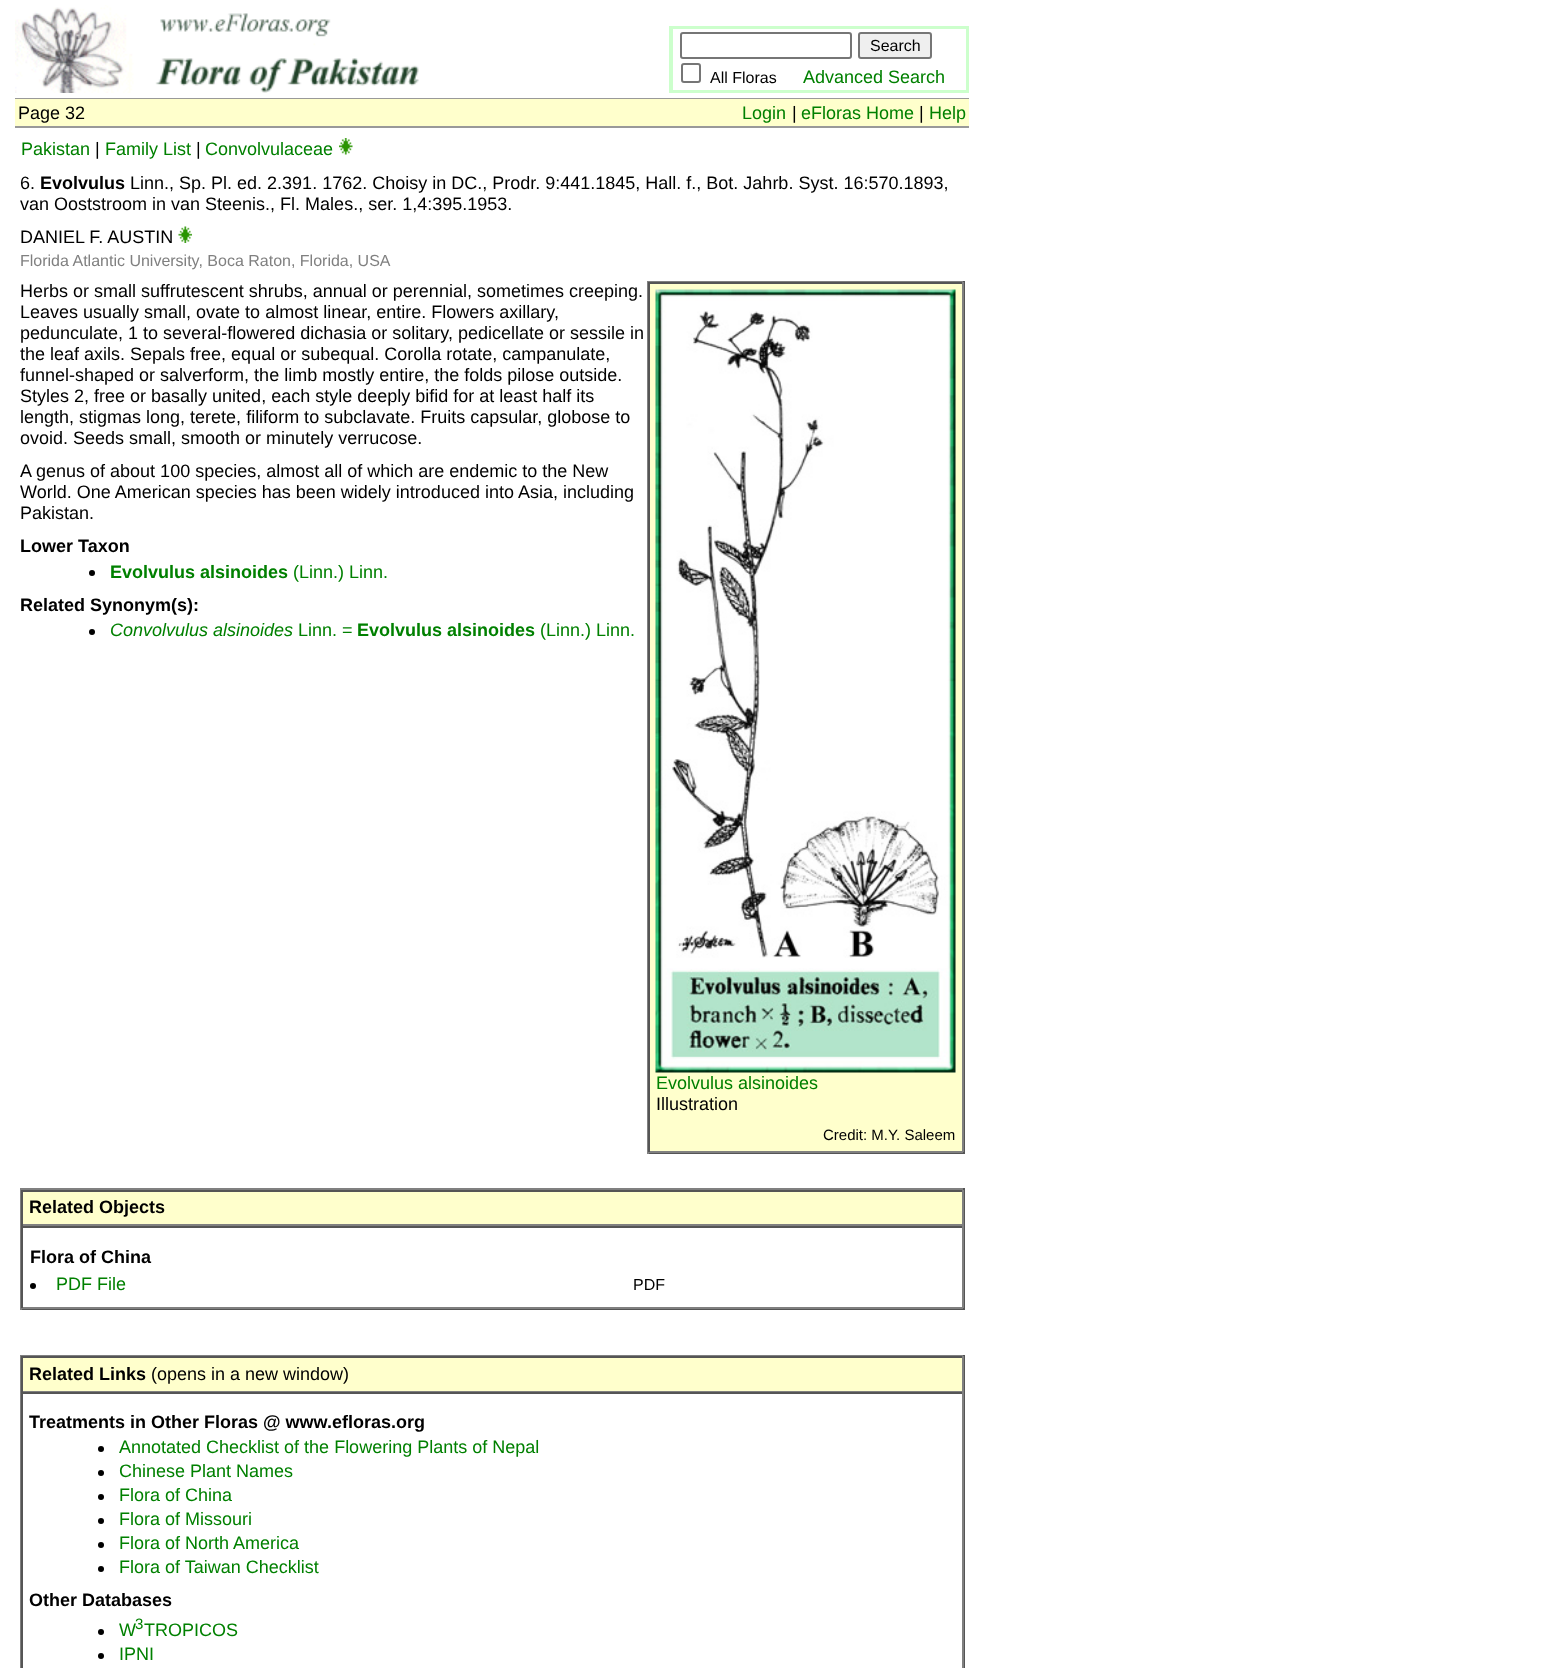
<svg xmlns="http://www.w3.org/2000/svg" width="1549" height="1668">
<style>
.a{font:16px Liberation Sans;fill:#000}
.b{font:18px Liberation Sans;fill:#008000}
.c{font:18px Liberation Sans;fill:#000}
.d{font:bold 18px Liberation Sans;fill:#000}
.e{font:16px Liberation Sans;fill:#808080}
.f{font:bold 18px Liberation Sans;fill:#008000}
.g{font:italic 18px Liberation Sans;fill:#008000}
.h{font:15px Liberation Sans;fill:#000}
.i{font:15px Liberation Sans;fill:#008000}
</style>
<rect width="100%" height="100%" fill="#fff"/>
<image href="1.png" x="15" y="5" width="404" height="88"/>
<path fill="none" stroke="#cfc" stroke-width="2" d="M670 27h298v65H670z"/>
<path fill="none" stroke="#cfc" stroke-width="2" d="M672 28h295v63H672z"/>
<rect fill="none" stroke="#767676" stroke-width="2" x="681" y="33" width="170" height="25" rx="2"/>
<rect fill="#efefef" stroke="#767676" stroke-width="2" x="859" y="33" width="72" height="25" rx="2"/>
<rect fill="none" stroke="#767676" stroke-width="2" x="682" y="64" width="18" height="18" rx="2"/>
<path fill="#999" d="M15 98h954v1H15z"/>
<path fill="#ffc" d="M15 99h954v27H15z"/>
<path fill="#999" d="M15 126h954v2H15z"/>
<image href="2.png" x="339" y="138" width="14" height="17"/>
<image href="3.png" x="178" y="226" width="14" height="17"/>
<circle fill="#000" cx="92" cy="573" r="3"/>
<circle fill="#000" cx="92" cy="632" r="3"/>
<path fill="#ffc" d="M650 284h312v867H650z"/>
<path fill="#808080" d="M647 281h318v1H647z"/>
<path fill="#555" d="M963 281h2v873H963z"/>
<path fill="#555" d="M647 1152h318v2H647z"/>
<path fill="#808080" d="M647 281h2v873H647z"/>
<path fill="#555" d="M648 282h315v2H648z"/>
<path fill="#808080" d="M962 282h2v870H962z"/>
<path fill="#808080" d="M648 1151h315v2H648z"/>
<path fill="#555" d="M648 282h2v870H648z"/>
<image href="4.png" x="655" y="289" width="301" height="784"/>
<path fill="#808080" d="M20 1188h945v2H20z"/>
<path fill="#555" d="M963 1188h2v122H963z"/>
<path fill="#555" d="M20 1308h945v2H20z"/>
<path fill="#808080" d="M20 1188h2v122H20z"/>
<path fill="#ffc" d="M23 1192h939v32H23z"/>
<path fill="#555" d="M21 1190h942v2H21z"/>
<path fill="#808080" d="M962 1190h2v36H962z"/>
<path fill="#808080" d="M21 1224h942v2H21z"/>
<path fill="#555" d="M21 1190h2v36H21z"/>
<path fill="#555" d="M21 1226h942v2H21z"/>
<path fill="#808080" d="M962 1226h2v82H962z"/>
<path fill="#808080" d="M21 1307h942v2H21z"/>
<path fill="#555" d="M21 1226h2v82H21z"/>
<circle fill="#000" cx="33" cy="1286" r="3"/>
<path fill="#808080" d="M20 1355h945v1H20z"/>
<path fill="#555" d="M963 1355h2v313H963z"/>
<path fill="#808080" d="M20 1355h2v313H20z"/>
<path fill="#ffc" d="M23 1358h939v33H23z"/>
<path fill="#555" d="M21 1356h942v2H21z"/>
<path fill="#808080" d="M962 1356h2v36H962z"/>
<path fill="#808080" d="M21 1391h942v1H21z"/>
<path fill="#555" d="M21 1356h2v36H21z"/>
<path fill="#555" d="M21 1392h942v2H21z"/>
<path fill="#808080" d="M962 1392h2v276H962z"/>
<path fill="#555" d="M21 1392h2v276H21z"/>
<circle fill="#000" cx="101" cy="1449" r="3"/>
<circle fill="#000" cx="101" cy="1473" r="3"/>
<circle fill="#000" cx="101" cy="1497" r="3"/>
<circle fill="#000" cx="101" cy="1521" r="3"/>
<circle fill="#000" cx="101" cy="1545" r="3"/>
<circle fill="#000" cx="101" cy="1569" r="3"/>
<circle fill="#000" cx="101" cy="1632" r="3"/>
<circle fill="#000" cx="101" cy="1656" r="3"/>
<text class="a" x="870" y="51">Search</text>
<text class="a" x="710" y="83">All Floras</text>
<text class="b" x="803" y="83">Advanced Search</text>
<text class="c" x="18" y="119">Page 32</text>
<text class="b" x="742" y="119">Login</text>
<text class="c" x="792" y="119">|</text>
<text class="b" x="801" y="119">eFloras Home</text>
<text class="c" x="919" y="119">|</text>
<text class="b" x="929" y="119">Help</text>
<text class="b" x="21" y="155">Pakistan</text>
<text class="c" x="95" y="155">|</text>
<text class="b" x="105" y="155">Family List</text>
<text class="c" x="196" y="155">|</text>
<text class="b" x="205" y="155">Convolvulaceae</text>
<text class="c" x="20" y="189">6.</text>
<text class="d" x="40" y="189">Evolvulus</text>
<text class="c" x="130" y="189">Linn., Sp. Pl. ed. 2.391. 1762. Choisy in DC., Prodr. 9:441.1845, Hall. f., Bot. Jahrb. Syst. 16:570.1893,</text>
<text class="c" x="20" y="210">van Ooststroom in van Steenis., Fl. Males., ser. 1,4:395.1953.</text>
<text class="c" x="20" y="243">DANIEL F. AUSTIN</text>
<text class="e" x="20" y="266">Florida Atlantic University, Boca Raton, Florida, USA</text>
<text class="c" x="20" y="297">Herbs or small suffrutescent shrubs, annual or perennial, sometimes creeping.</text>
<text class="c" x="20" y="318">Leaves usually small, ovate to almost linear, entire. Flowers axillary,</text>
<text class="c" x="20" y="339">pedunculate, 1 to several-flowered dichasia or solitary, pedicellate or sessile in</text>
<text class="c" x="20" y="360">the leaf axils. Sepals free, equal or subequal. Corolla rotate, campanulate,</text>
<text class="c" x="20" y="381">funnel-shaped or salverform, the limb mostly entire, the folds pilose outside.</text>
<text class="c" x="20" y="402">Styles 2, free or basally united, each style deeply bifid for at least half its</text>
<text class="c" x="20" y="423">length, stigmas long, terete, filiform to subclavate. Fruits capsular, globose to</text>
<text class="c" x="20" y="444">ovoid. Seeds small, smooth or minutely verrucose.</text>
<text class="c" x="20" y="477">A genus of about 100 species, almost all of which are endemic to the New</text>
<text class="c" x="20" y="498">World. One American species has been widely introduced into Asia, including</text>
<text class="c" x="20" y="519">Pakistan.</text>
<text class="d" x="20" y="552">Lower Taxon</text>
<text class="f" x="110" y="578">Evolvulus alsinoides</text>
<text class="b" x="293" y="578">(Linn.) Linn.</text>
<text class="d" x="20" y="611">Related Synonym(s):</text>
<text class="g" x="110" y="636">Convolvulus alsinoides</text>
<text class="b" x="298" y="636">Linn. =</text>
<text class="f" x="357" y="636">Evolvulus alsinoides</text>
<text class="b" x="540" y="636">(Linn.) Linn.</text>
<text class="b" x="656" y="1089">Evolvulus alsinoides</text>
<text class="c" x="656" y="1110">Illustration</text>
<text class="h" x="823" y="1140">Credit: M.Y. Saleem</text>
<text class="d" x="29" y="1213">Related Objects</text>
<text class="d" x="30" y="1263">Flora of China</text>
<text class="b" x="56" y="1290">PDF File</text>
<text class="a" x="633" y="1290">PDF</text>
<text class="d" x="29" y="1380">Related Links</text>
<text class="c" x="151" y="1380">(opens in a new window)</text>
<text class="d" x="29" y="1428">Treatments in Other Floras @ www.efloras.org</text>
<text class="b" x="119" y="1453">Annotated Checklist of the Flowering Plants of Nepal</text>
<text class="b" x="119" y="1477">Chinese Plant Names</text>
<text class="b" x="119" y="1501">Flora of China</text>
<text class="b" x="119" y="1525">Flora of Missouri</text>
<text class="b" x="119" y="1549">Flora of North America</text>
<text class="b" x="119" y="1573">Flora of Taiwan Checklist</text>
<text class="d" x="29" y="1606">Other Databases</text>
<text class="b" x="119" y="1636">W</text>
<text class="i" x="135" y="1629">3</text>
<text class="b" x="144" y="1636">TROPICOS</text>
<text class="b" x="119" y="1660">IPNI</text>
</svg>
